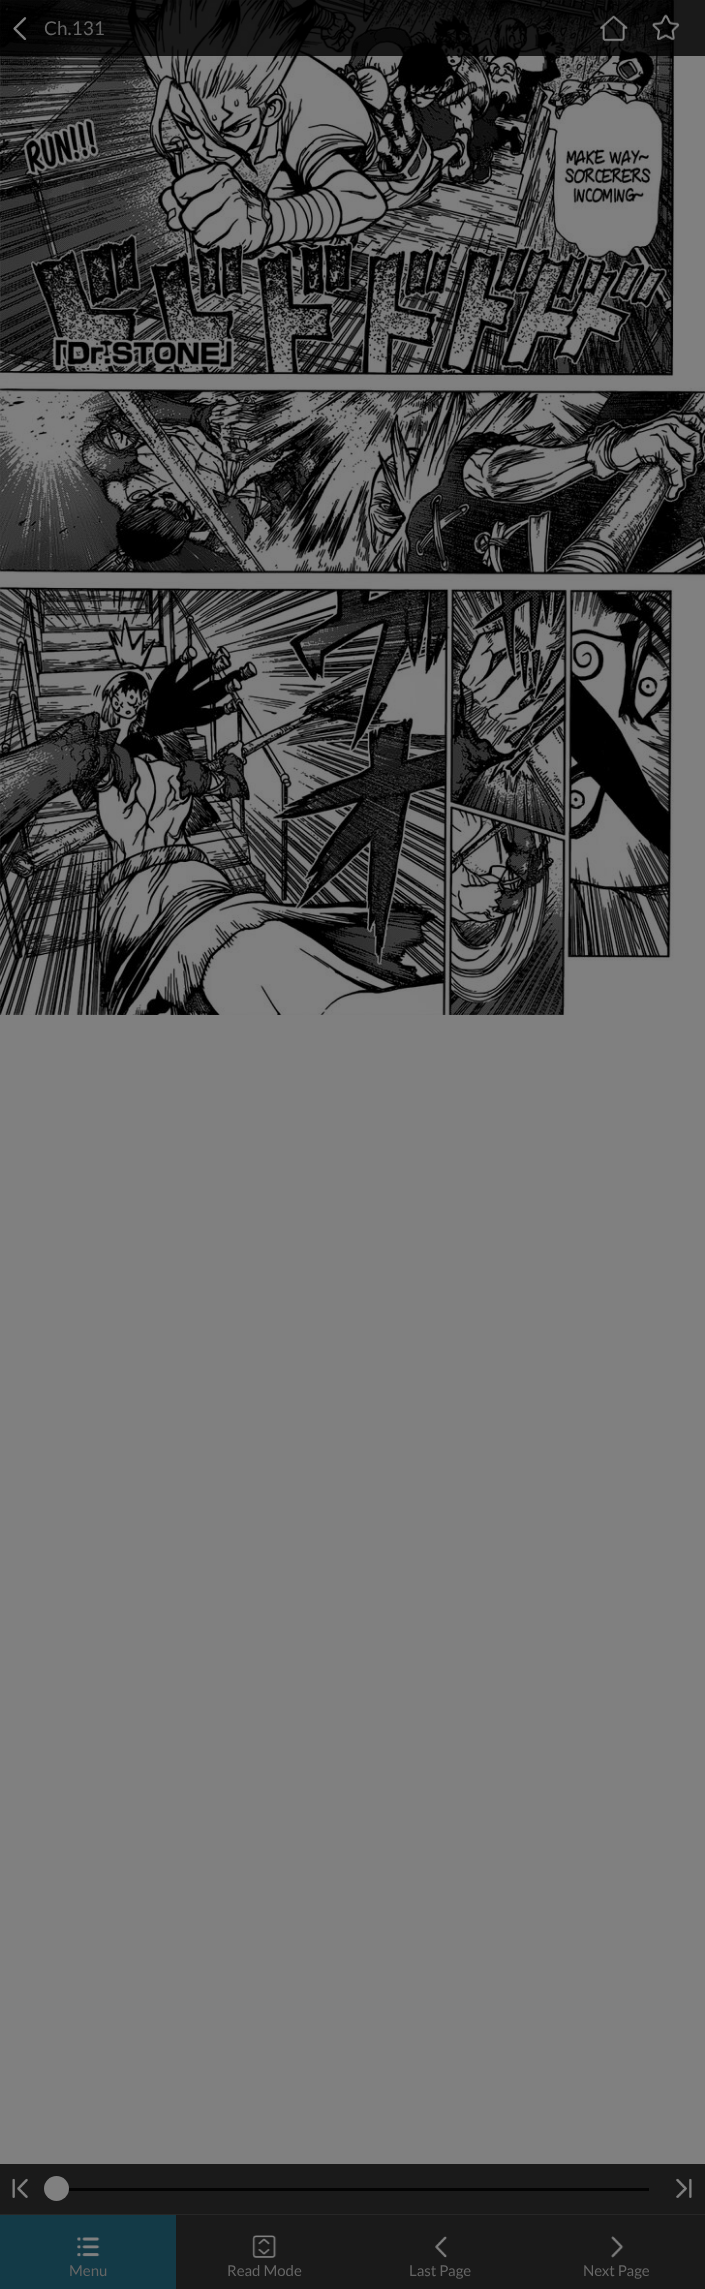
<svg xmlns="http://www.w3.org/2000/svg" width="705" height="2289">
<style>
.a{font:19px Lato;fill:#656565}
.b{font:15px Lato;fill:#656565}
</style>
<rect width="100%" height="100%" fill="#808080"/>
<path fill="#1a1a1a" d="M0 2164h705v50H0z"/>
<image href="1.png" x="0" y="0" width="705" height="1015"/>
<path fill="#000000cc" d="M0 0h705v56H0z"/>
<image href="2.png" x="13" y="17" width="14" height="23"/>
<image href="3.png" x="600" y="15" width="28" height="27"/>
<image href="4.png" x="652" y="14" width="28" height="27"/>
<image href="5.png" x="12" y="2178" width="16" height="20"/>
<path fill="#040404" d="M68 2188h581v3H68z"/>
<circle fill="#808080" cx="56.5" cy="2188.5" r="12.5"/>
<image href="6.png" x="676" y="2178" width="16" height="20"/>
<path fill="#1a1a1a" d="M176 2215h529v74H176z"/>
<path fill="#272727" d="M0 2214h705v1H0z"/>
<path fill="#133a47" d="M0 2215h176v74H0z"/>
<image href="7.png" x="77" y="2237" width="23" height="20"/>
<image href="8.png" x="252" y="2235" width="25" height="23"/>
<image href="9.png" x="435" y="2236" width="13" height="22"/>
<image href="10.png" x="611" y="2236" width="13" height="22"/>
<text class="a" x="44" y="35">Ch.131</text>
<text class="b" x="69" y="2276">Menu</text>
<text class="b" x="227" y="2276">Read Mode</text>
<text class="b" x="409" y="2276">Last Page</text>
<text class="b" x="583" y="2276">Next Page</text>
</svg>
